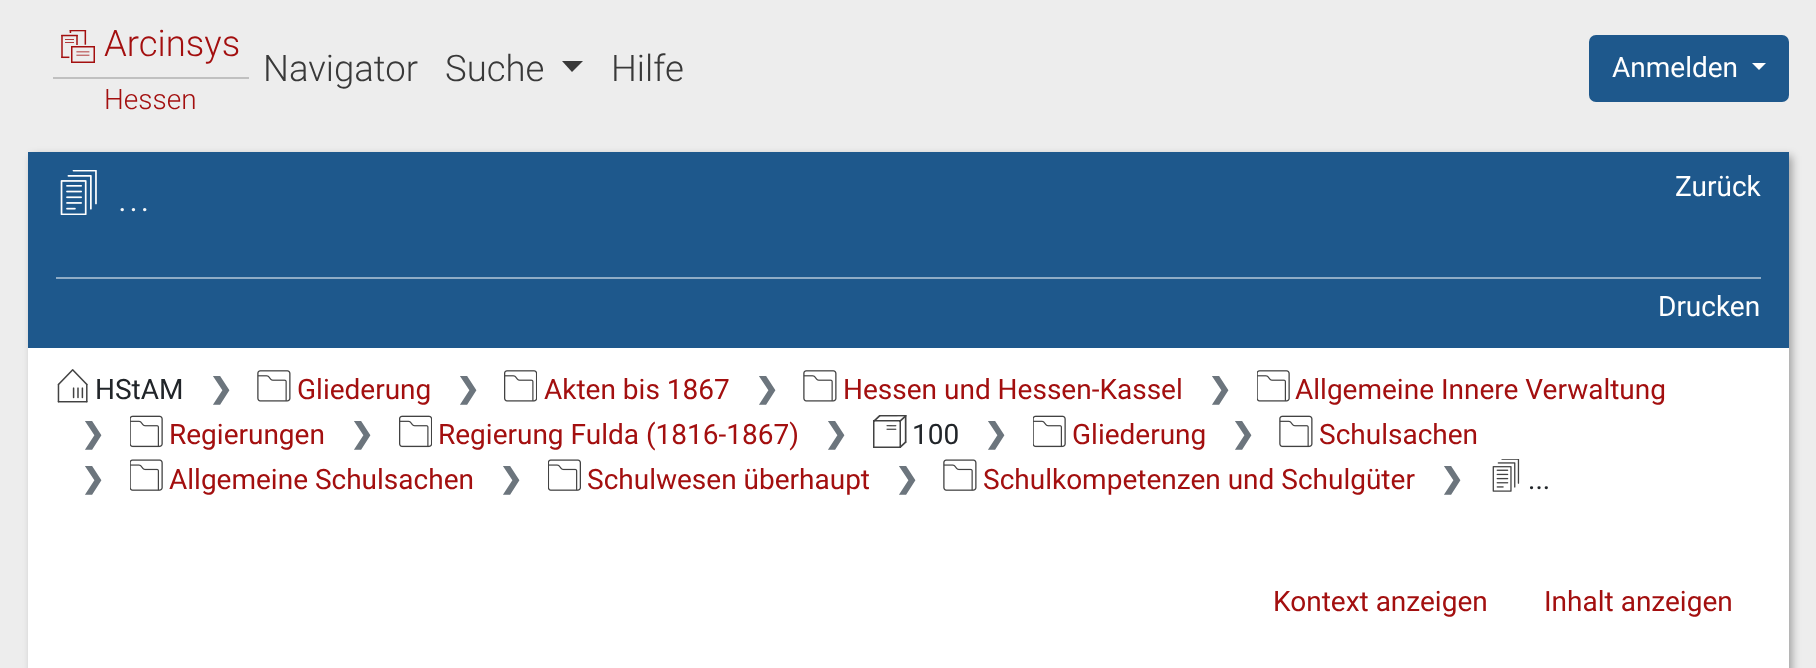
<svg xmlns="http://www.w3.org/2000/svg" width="1816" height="668">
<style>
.a{font:300 36.5px Roboto;fill:#a30f0f}
.b{font:300 28px Roboto;fill:#a30f0f}
.c{font:300 36.5px Roboto;fill:#393939}
.d{font:28px Roboto;fill:#fff}
.e{font:200 50px Roboto;fill:#f8f9fa}
.f{font:28px Roboto;fill:#212529}
.g{font:bold 28px DejaVu Sans;fill:#6c757d}
.h{font:28px Roboto;fill:#a30f0f}
</style>
<rect width="100%" height="100%" fill="#ededed"/>
<image href="1.png" x="61" y="30" width="34" height="33"/>
<path fill="#c0c0c0" d="M53 77h196v2H53z"/>
<path fill="#393939" d="M562 61h21l-11 11z"/>
<rect fill="#1e588c" stroke="#1e588c" stroke-width="2" x="1590" y="36" width="198" height="65" rx="6"/>
<path fill="#fff" d="M1752 63h14l-7 7z"/>
<path fill="#00000054" filter="blur(4.5px)" d="M32 156h1760v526H32z"/>
<path fill="#fff" d="M28 348h1761v320H28z"/>
<path fill="#1e588c" d="M28 152h1761v196H28z"/>
<image href="2.png" x="60" y="170" width="37" height="45"/>
<path fill="#8facc6" d="M56 277h1705v2H56z"/>
<image href="3.png" x="57" y="369" width="31" height="34"/>
<image href="4.png" x="257" y="370" width="34" height="32"/>
<image href="5.png" x="504" y="370" width="33" height="32"/>
<image href="4.png" x="803" y="370" width="34" height="32"/>
<image href="6.png" x="1257" y="370" width="33" height="32"/>
<image href="7.png" x="130" y="415" width="33" height="33"/>
<image href="8.png" x="399" y="415" width="33" height="33"/>
<image href="9.png" x="873" y="415" width="34" height="33"/>
<image href="7.png" x="1033" y="415" width="33" height="33"/>
<image href="10.png" x="1279" y="415" width="34" height="33"/>
<image href="11.png" x="130" y="459" width="33" height="32"/>
<image href="12.png" x="548" y="459" width="33" height="32"/>
<image href="13.png" x="943" y="459" width="34" height="32"/>
<image href="14.png" x="1492" y="459" width="28" height="33"/>
<text class="a" x="104" y="56">Arcinsys</text>
<text class="b" x="104" y="109">Hessen</text>
<text class="c" x="263" y="81">Navigator</text>
<text class="c" x="445" y="81">Suche</text>
<text class="c" x="611" y="81">Hilfe</text>
<text class="d" x="1612" y="77">Anmelden</text>
<text class="d" x="1675" y="196">Zurück</text>
<text class="e" x="117" y="211">...</text>
<text class="d" x="1658" y="316">Drucken</text>
<text class="f" x="95" y="399">HStAM</text>
<text class="g" x="209" y="398">❯</text>
<text class="h" x="297" y="399">Gliederung</text>
<text class="g" x="456" y="398">❯</text>
<text class="h" x="544" y="399">Akten bis 1867</text>
<text class="g" x="755" y="398">❯</text>
<text class="h" x="843" y="399">Hessen und Hessen-Kassel</text>
<text class="g" x="1208" y="398">❯</text>
<text class="h" x="1295" y="399">Allgemeine Innere Verwaltung</text>
<text class="g" x="81" y="443">❯</text>
<text class="h" x="169" y="444">Regierungen</text>
<text class="g" x="350" y="443">❯</text>
<text class="h" x="438" y="444">Regierung Fulda (1816-1867)</text>
<text class="g" x="824" y="443">❯</text>
<text class="f" x="912" y="444">100</text>
<text class="g" x="984" y="443">❯</text>
<text class="h" x="1072" y="444">Gliederung</text>
<text class="g" x="1231" y="443">❯</text>
<text class="h" x="1319" y="444">Schulsachen</text>
<text class="g" x="81" y="488">❯</text>
<text class="h" x="169" y="489">Allgemeine Schulsachen</text>
<text class="g" x="499" y="488">❯</text>
<text class="h" x="587" y="489">Schulwesen überhaupt</text>
<text class="g" x="895" y="488">❯</text>
<text class="h" x="983" y="489">Schulkompetenzen und Schulgüter</text>
<text class="g" x="1440" y="488">❯</text>
<text class="f" x="1528" y="489">...</text>
<text class="h" x="1273" y="611">Kontext anzeigen</text>
<text class="h" x="1544" y="611">Inhalt anzeigen</text>
</svg>
